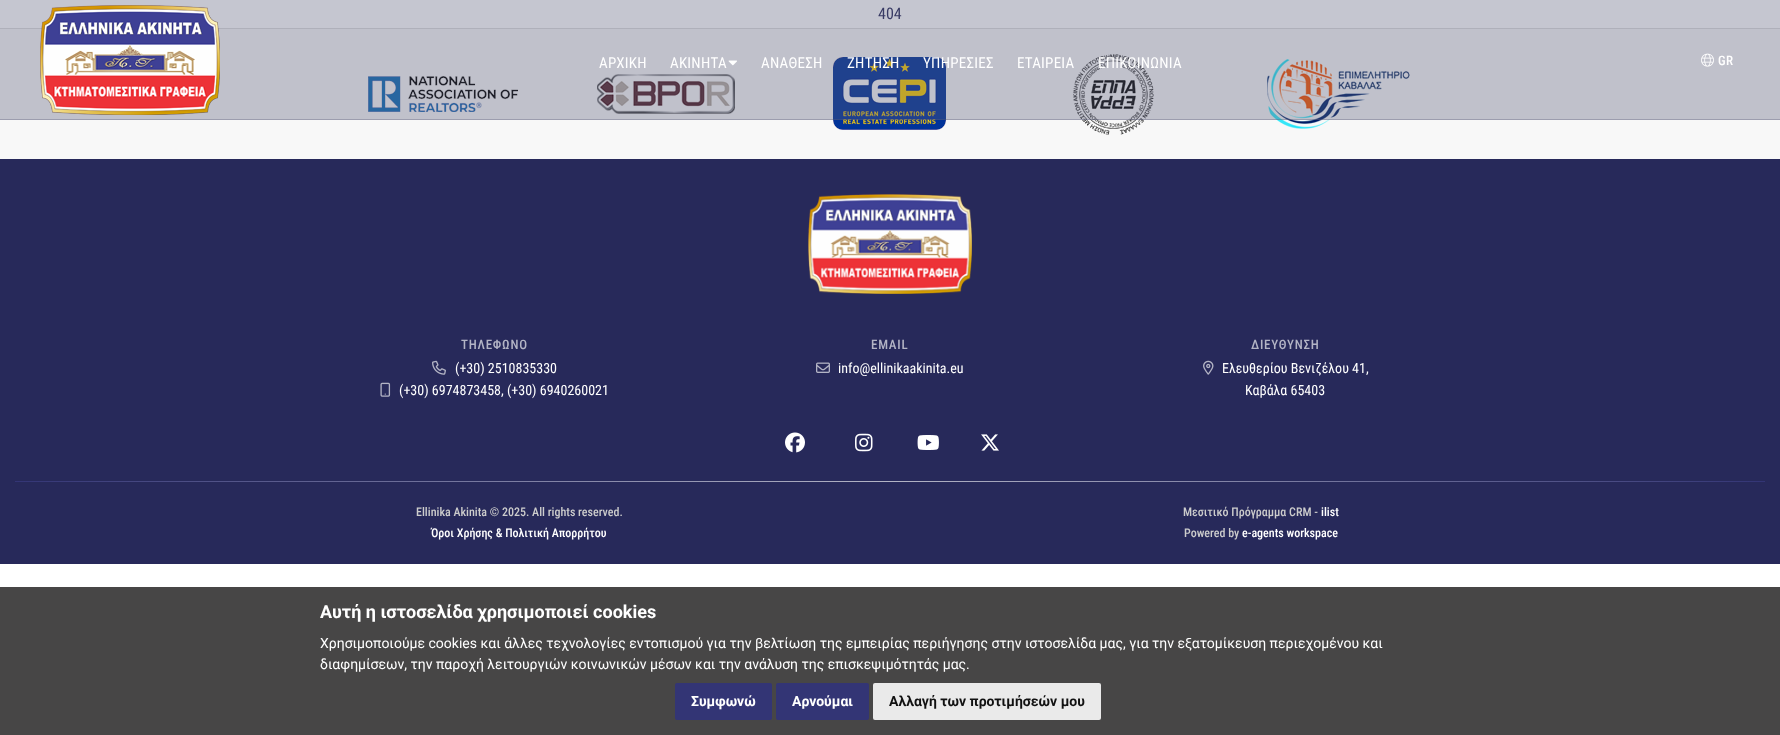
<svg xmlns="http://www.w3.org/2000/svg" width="1780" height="735">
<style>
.a{font:16px Roboto Condensed;fill:#27295a}
.b{font:15px Roboto Condensed;letter-spacing:0.25px;fill:#fff}
.c{font:500 13px Roboto Condensed;letter-spacing:0.25px;fill:#fff}
.d{font:500 13px Roboto Condensed;letter-spacing:0.75px;fill:#b3b4c5}
.e{font:14px Roboto Condensed;fill:#fff}
.f{font:500 12px Roboto Condensed;fill:#ccc}
.g{font:500 12px Roboto Condensed;fill:#fff}
.h{font:bold 18px Roboto;fill:#fff}
.i{font:14px Roboto;fill:#fff}
.j{font:bold 14px Roboto;fill:#fff}
.k{font:bold 14px Roboto;fill:#111}
</style>
<defs>
<linearGradient id="g1" gradientUnits="userSpaceOnUse" x1="15" y1="482" x2="1765" y2="481"><stop offset="0" stop-color="#333575"/><stop offset="0.5" stop-color="#b3b4c5"/><stop offset="1" stop-color="#333575"/></linearGradient>
</defs>
<rect width="100%" height="100%" fill="#fff"/>
<path fill="#27295a" d="M0 159h1780v405H0z"/>
<path fill="#f8f8f8" d="M0 29h1780v130H0z"/>
<path fill="#ddd" d="M0 28h1780v1H0z"/>
<image href="4.png" x="368" y="76" width="150" height="36"/>
<image href="5.png" x="597" y="74" width="138" height="40"/>
<image href="6.png" x="833" y="57" width="113" height="73"/>
<image href="7.png" x="1073" y="54" width="81" height="81"/>
<image href="8.png" x="1267" y="59" width="143" height="70"/>
<image href="9.png" x="808" y="194" width="164" height="100"/>
<image href="10.png" x="432" y="360" width="14" height="15"/>
<image href="11.png" x="380" y="382" width="11" height="15"/>
<image href="12.png" x="816" y="362" width="14" height="11"/>
<image href="13.png" x="1203" y="360" width="11" height="15"/>
<image href="14.png" x="785" y="432" width="20" height="21"/>
<image href="15.png" x="855" y="433" width="18" height="19"/>
<image href="16.png" x="917" y="435" width="22" height="15"/>
<image href="17.png" x="981" y="434" width="18" height="17"/>
<path fill="url(#g1)" d="M15 481h1750v1H15z"/>
<path fill="#474646" d="M0 587h1780v148H0z"/>
<rect fill="#333575" x="675" y="683" width="97" height="37" rx="2"/>
<rect fill="#333575" x="776" y="683" width="93" height="37" rx="2"/>
<rect fill="#eaeaea" x="873" y="683" width="228" height="37" rx="2"/>
<text class="a" x="878" y="19">404</text>
<path fill="#5a5b7959" d="M0 0h1780v120H0z"/>
<path fill="#5a5b7959" d="M0 119h1780v1H0z"/>
<image href="1.png" x="40" y="5" width="180" height="110"/>
<text class="b" x="599" y="68">ΑΡΧΙΚΗ</text>
<text class="b" x="670" y="68">ΑΚΙΝΗΤΑ</text>
<image href="2.png" x="728" y="60" width="9" height="6"/>
<text class="b" x="761" y="68">ΑΝΑΘΕΣΗ</text>
<text class="b" x="847" y="68">ΖΗΤΗΣΗ</text>
<text class="b" x="923" y="68">ΥΠΗΡΕΣΙΕΣ</text>
<text class="b" x="1017" y="68">ΕΤΑΙΡΕΙΑ</text>
<text class="b" x="1098" y="68">ΕΠΙΚΟΙΝΩΝΙΑ</text>
<image href="3.png" x="1701" y="53" width="13" height="14"/>
<text class="c" x="1718" y="65">GR</text>
<text class="d" x="461" y="349">ΤΗΛΕΦΩΝΟ</text>
<text class="e" x="455" y="373">(+30) 2510835330</text>
<text class="e" x="399" y="395">(+30) 6974873458, (+30) 6940260021</text>
<text class="d" x="871" y="349">EMAIL</text>
<text class="e" x="838" y="373">info@ellinikaakinita.eu</text>
<text class="d" x="1251" y="349">ΔΙΕΥΘΥΝΣΗ</text>
<text class="e" x="1222" y="373">Ελευθερίου Βενιζέλου 41,</text>
<text class="e" x="1245" y="395">Καβάλα 65403</text>
<text class="f" x="416" y="516">Ellinika Akinita © 2025. All rights reserved.</text>
<text class="g" x="431" y="537">Όροι Χρήσης &amp; Πολιτική Απορρήτου</text>
<text class="f" x="1183" y="516">Μεσιτικό Πρόγραμμα CRM -</text>
<text class="g" x="1321" y="516">ilist</text>
<text class="f" x="1184" y="537">Powered by</text>
<text class="g" x="1242" y="537">e-agents workspace</text>
<text class="h" x="320" y="618">Αυτή η ιστοσελίδα χρησιμοποιεί cookies</text>
<text class="i" x="320" y="648">Χρησιμοποιούμε cookies και άλλες τεχνολογίες εντοπισμού για την βελτίωση της εμπειρίας περιήγησης στην ιστοσελίδα μας, για την εξατομίκευση περιεχομένου και</text>
<text class="i" x="320" y="669">διαφημίσεων, την παροχή λειτουργιών κοινωνικών μέσων και την ανάλυση της επισκεψιμότητάς μας.</text>
<text class="j" x="691" y="706">Συμφωνώ</text>
<text class="j" x="792" y="706">Αρνούμαι</text>
<text class="k" x="889" y="706">Αλλαγή των προτιμήσεών μου</text>
</svg>
